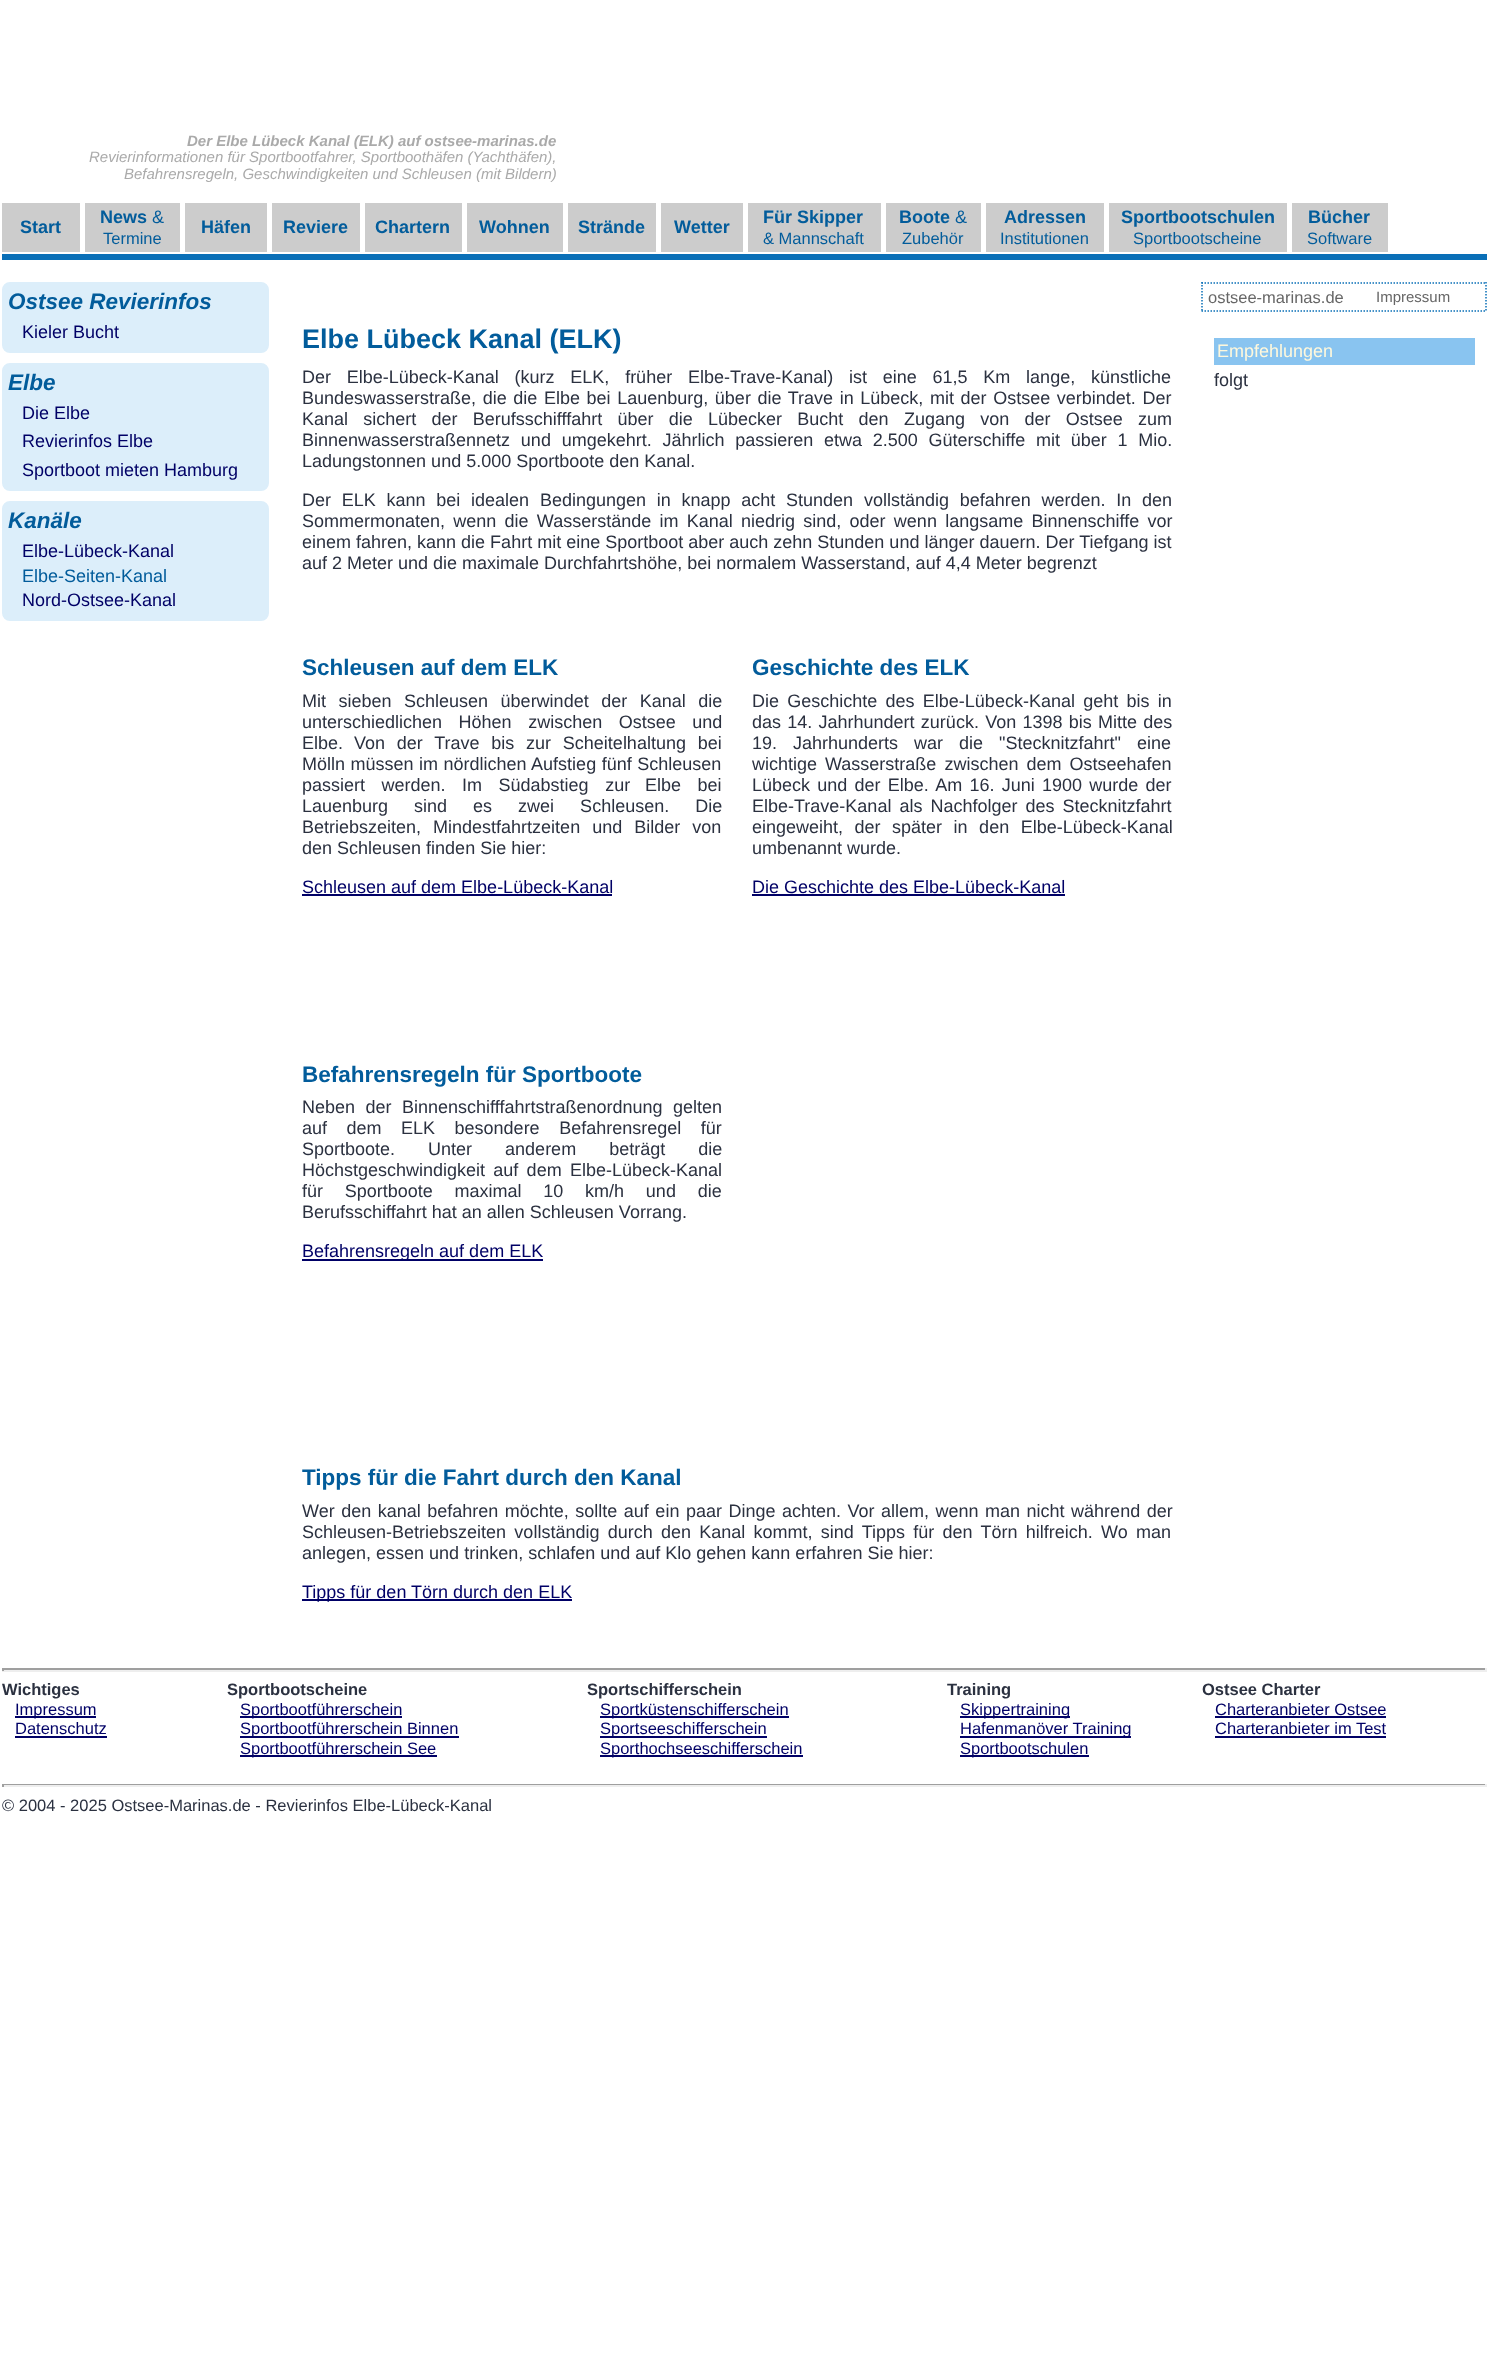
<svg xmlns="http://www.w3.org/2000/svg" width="1488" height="2359">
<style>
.a{font:italic bold 15px Liberation Sans;fill:#aaa}
.b{font:italic 15px Liberation Sans;fill:#aaa}
.c{font:bold 18px Liberation Sans;fill:#025c9b}
.d{font:18px Liberation Sans;fill:#025c9b}
.e{font:16.5px Liberation Sans;fill:#025c9b}
.f{font:italic bold 22.5px Liberation Sans;fill:#025c9b}
.g{font:18px Liberation Sans;fill:#006}
.h{font:bold 27px Liberation Sans;fill:#025c9b}
.i{font:18px Liberation Sans;fill:#2b3140}
.j{font:bold 22.5px Liberation Sans;fill:#025c9b}
.k{font:16.5px Liberation Sans;fill:#666}
.l{font:15px Liberation Sans;fill:#666}
.m{font:18px Liberation Sans;fill:#fff8dc}
.n{font:bold 16.5px Liberation Sans;fill:#2b3140}
.o{font:16.5px Liberation Sans;fill:#006}
.p{font:16.5px Liberation Sans;fill:#2b3140}
</style>
<rect width="100%" height="100%" fill="#fff"/>
<path fill="#ccc" d="M2 203h78v49H2z"/>
<path fill="#ccc" d="M85 203h95v49H85z"/>
<path fill="#ccc" d="M185 203h82v49H185z"/>
<path fill="#ccc" d="M272 203h88v49H272z"/>
<path fill="#ccc" d="M365 203h97v49H365z"/>
<path fill="#ccc" d="M467 203h96v49H467z"/>
<path fill="#ccc" d="M568 203h88v49H568z"/>
<path fill="#ccc" d="M661 203h82v49H661z"/>
<path fill="#ccc" d="M748 203h133v49H748z"/>
<path fill="#ccc" d="M886 203h95v49H886z"/>
<path fill="#ccc" d="M986 203h118v49H986z"/>
<path fill="#ccc" d="M1109 203h178v49H1109z"/>
<path fill="#ccc" d="M1292 203h96v49H1292z"/>
<path fill="#0a6fb7" d="M2 254h1485v6H2z"/>
<rect fill="#dceefa" stroke="#dceefa" stroke-width="2" x="3" y="283" width="265" height="69" rx="7"/>
<rect fill="#dceefa" stroke="#dceefa" stroke-width="2" x="3" y="364" width="265" height="126" rx="7"/>
<rect fill="#dceefa" stroke="#dceefa" stroke-width="2" x="3" y="502" width="265" height="118" rx="7"/>
<path fill="#006" d="M302 894h310v2H302z"/>
<path fill="#006" d="M752 894h313v2H752z"/>
<path fill="#006" d="M302 1259h241v2H302z"/>
<path fill="#006" d="M302 1599h270v2H302z"/>
<path fill="none" stroke="#0a6fb7" stroke-width="1.5" stroke-dasharray="1.5 1.5" d="M1201.5 283h285"/>
<path fill="none" stroke="#0a6fb7" stroke-width="1.5" stroke-dasharray="1.5 1.5" d="M1486 282v30"/>
<path fill="none" stroke="#0a6fb7" stroke-width="1.5" stroke-dasharray="1.5 1.5" d="M1201.5 311h285"/>
<path fill="none" stroke="#0a6fb7" stroke-width="1.5" stroke-dasharray="1.5 1.5" d="M1202 282v30"/>
<path fill="#89c4f0" d="M1214 338h261v27H1214z"/>
<path fill="#9f9f9f" d="M2 1668h1485v2H2z"/>
<path fill="#eee" d="M1485 1668h2v3H1485z"/>
<path fill="#eee" d="M2 1670h1485v2H2z"/>
<path fill="#9f9f9f" d="M2 1668h2v3H2z"/>
<path fill="#006" d="M15 1716h81v2H15z"/>
<path fill="#006" d="M15 1736h92v2H15z"/>
<path fill="#006" d="M240 1716h162v2H240z"/>
<path fill="#006" d="M240 1736h219v2H240z"/>
<path fill="#006" d="M240 1755h197v2H240z"/>
<path fill="#006" d="M600 1716h189v2H600z"/>
<path fill="#006" d="M600 1736h167v2H600z"/>
<path fill="#006" d="M600 1755h203v2H600z"/>
<path fill="#006" d="M960 1716h110v2H960z"/>
<path fill="#006" d="M960 1736h171v2H960z"/>
<path fill="#006" d="M960 1755h129v2H960z"/>
<path fill="#006" d="M1215 1716h171v2H1215z"/>
<path fill="#006" d="M1215 1736h171v2H1215z"/>
<path fill="#9f9f9f" d="M2 1784h1485v1H2z"/>
<path fill="#eee" d="M1485 1784h2v3H1485z"/>
<path fill="#eee" d="M2 1785h1485v2H2z"/>
<path fill="#9f9f9f" d="M2 1784h2v3H2z"/>
<text class="a" x="187" y="146">Der Elbe Lübeck Kanal (ELK) auf ostsee-marinas.de</text>
<text class="b" x="89" y="162">Revierinformationen für Sportbootfahrer, Sportboothäfen (Yachthäfen),</text>
<text class="b" x="124" y="179">Befahrensregeln, Geschwindigkeiten und Schleusen (mit Bildern)</text>
<text class="c" x="20" y="233">Start</text>
<text class="c" x="100" y="223">News</text>
<text class="d" x="152" y="223">&amp;</text>
<text class="e" x="103" y="244">Termine</text>
<text class="c" x="201" y="233">Häfen</text>
<text class="c" x="283" y="233">Reviere</text>
<text class="c" x="375" y="233">Chartern</text>
<text class="c" x="479" y="233">Wohnen</text>
<text class="c" x="578" y="233">Strände</text>
<text class="c" x="674" y="233">Wetter</text>
<text class="c" x="763" y="223">Für Skipper</text>
<text class="e" x="763" y="244">&amp; Mannschaft</text>
<text class="c" x="899" y="223">Boote</text>
<text class="d" x="955" y="223">&amp;</text>
<text class="e" x="902" y="244">Zubehör</text>
<text class="c" x="1004" y="223">Adressen</text>
<text class="e" x="1000" y="244">Institutionen</text>
<text class="c" x="1121" y="223">Sportbootschulen</text>
<text class="e" x="1133" y="244">Sportbootscheine</text>
<text class="c" x="1308" y="223">Bücher</text>
<text class="e" x="1307" y="244">Software</text>
<text class="f" x="8" y="309">Ostsee Revierinfos</text>
<text class="g" x="22" y="338">Kieler Bucht</text>
<text class="f" x="8" y="390">Elbe</text>
<text class="g" x="22" y="419">Die Elbe</text>
<text class="g" x="22" y="447">Revierinfos Elbe</text>
<text class="g" x="22" y="476">Sportboot mieten Hamburg</text>
<text class="f" x="8" y="528">Kanäle</text>
<text class="g" x="22" y="557">Elbe-Lübeck-Kanal</text>
<text class="d" x="22" y="582">Elbe-Seiten-Kanal</text>
<text class="g" x="22" y="606">Nord-Ostsee-Kanal</text>
<text class="h" x="302" y="348">Elbe Lübeck Kanal (ELK)</text>
<text class="i" x="302" y="383" word-spacing="10.75">Der Elbe-Lübeck-Kanal (kurz ELK, früher Elbe-Trave-Kanal) ist eine 61,5 Km lange, künstliche</text>
<text class="i" x="302" y="404" word-spacing="1.6">Bundeswasserstraße, die die Elbe bei Lauenburg, über die Trave in Lübeck, mit der Ostsee verbindet. Der</text>
<text class="i" x="302" y="425" word-spacing="10.25">Kanal sichert der Berufsschifffahrt über die Lübecker Bucht den Zugang von der Ostsee zum</text>
<text class="i" x="302" y="446" word-spacing="5.75">Binnenwasserstraßennetz und umgekehrt. Jährlich passieren etwa 2.500 Güterschiffe mit über 1 Mio.</text>
<text class="i" x="302" y="467">Ladungstonnen und 5.000 Sportboote den Kanal.</text>
<text class="i" x="302" y="506" word-spacing="5.75">Der ELK kann bei idealen Bedingungen in knapp acht Stunden vollständig befahren werden. In den</text>
<text class="i" x="302" y="527" word-spacing="3.25">Sommermonaten, wenn die Wasserstände im Kanal niedrig sind, oder wenn langsame Binnenschiffe vor</text>
<text class="i" x="302" y="548">einem fahren, kann die Fahrt mit eine Sportboot aber auch zehn Stunden und länger dauern. Der Tiefgang ist</text>
<text class="i" x="302" y="569">auf 2 Meter und die maximale Durchfahrtshöhe, bei normalem Wasserstand, auf 4,4 Meter begrenzt</text>
<text class="j" x="302" y="675">Schleusen auf dem ELK</text>
<text class="i" x="302" y="707" word-spacing="7.5">Mit sieben Schleusen überwindet der Kanal die</text>
<text class="i" x="302" y="728" word-spacing="11.5">unterschiedlichen Höhen zwischen Ostsee und</text>
<text class="i" x="302" y="749">Elbe.</text>
<text class="i" x="354" y="749" word-spacing="6.75">Von der Trave bis zur Scheitelhaltung bei</text>
<text class="i" x="302" y="770" word-spacing="0.5">Mölln müssen im nördlichen Aufstieg fünf Schleusen</text>
<text class="i" x="302" y="791" word-spacing="11.5">passiert werden. Im Südabstieg zur</text>
<text class="i" x="645" y="791" word-spacing="11.5">Elbe bei</text>
<text class="i" x="302" y="812" word-spacing="21">Lauenburg sind es zwei Schleusen. Die</text>
<text class="i" x="302" y="833" word-spacing="7">Betriebszeiten, Mindestfahrtzeiten und Bilder von</text>
<text class="i" x="302" y="854">den Schleusen finden Sie hier:</text>
<text class="g" x="302" y="893">Schleusen auf dem Elbe-Lübeck-Kanal</text>
<text class="j" x="752" y="675">Geschichte des ELK</text>
<text class="i" x="752" y="707" word-spacing="3.25">Die Geschichte des Elbe-Lübeck-Kanal geht bis in</text>
<text class="i" x="752" y="728" word-spacing="1.25">das 14. Jahrhundert zurück. Von 1398 bis Mitte des</text>
<text class="i" x="752" y="749" word-spacing="11">19. Jahrhunderts war die "Stecknitzfahrt" eine</text>
<text class="i" x="752" y="770" word-spacing="3">wichtige Wasserstraße zwischen dem Ostseehafen</text>
<text class="i" x="752" y="791" word-spacing="2.25">Lübeck und der Elbe. Am 16. Juni 1900 wurde der</text>
<text class="i" x="752" y="812" word-spacing="3">Elbe-Trave-Kanal als Nachfolger des Stecknitzfahrt</text>
<text class="i" x="752" y="833" word-spacing="6.5">eingeweiht, der später in den Elbe-Lübeck-Kanal</text>
<text class="i" x="752" y="854">umbenannt wurde.</text>
<text class="g" x="752" y="893">Die Geschichte des Elbe-Lübeck-Kanal</text>
<text class="j" x="302" y="1082">Befahrensregeln für Sportboote</text>
<text class="i" x="302" y="1113" word-spacing="5.5">Neben der Binnenschifffahrtstraßenordnung gelten</text>
<text class="i" x="302" y="1134" word-spacing="14.5">auf dem ELK besondere Befahrensregel für</text>
<text class="i" x="302" y="1155" word-spacing="28">Sportboote. Unter anderem beträgt die</text>
<text class="i" x="302" y="1176" word-spacing="3.25">Höchstgeschwindigkeit auf dem Elbe-Lübeck-Kanal</text>
<text class="i" x="302" y="1197" word-spacing="16.75">für Sportboote maximal 10 km/h und die</text>
<text class="i" x="302" y="1218">Berufsschiffahrt hat an allen Schleusen Vorrang.</text>
<text class="g" x="302" y="1257">Befahrensregeln auf dem ELK</text>
<text class="j" x="302" y="1485">Tipps für die Fahrt durch den Kanal</text>
<text class="i" x="302" y="1517" word-spacing="1.5">Wer den kanal befahren möchte, sollte auf ein paar Dinge achten. Vor allem, wenn man nicht während der</text>
<text class="i" x="302" y="1538" word-spacing="3.25">Schleusen-Betriebszeiten vollständig durch den Kanal kommt, sind Tipps für den Törn hilfreich. Wo man</text>
<text class="i" x="302" y="1559">anlegen, essen und trinken, schlafen und auf Klo gehen kann erfahren Sie hier:</text>
<text class="g" x="302" y="1598">Tipps für den Törn durch den ELK</text>
<text class="k" x="1208" y="303">ostsee-marinas.de</text>
<text class="l" x="1376" y="302">Impressum</text>
<text class="m" x="1217" y="357">Empfehlungen</text>
<text class="i" x="1214" y="386">folgt</text>
<text class="n" x="2" y="1695">Wichtiges</text>
<text class="o" x="15" y="1715">Impressum</text>
<text class="o" x="15" y="1734">Datenschutz</text>
<text class="n" x="227" y="1695">Sportbootscheine</text>
<text class="o" x="240" y="1715">Sportbootführerschein</text>
<text class="o" x="240" y="1734">Sportbootführerschein Binnen</text>
<text class="o" x="240" y="1754">Sportbootführerschein See</text>
<text class="n" x="587" y="1695">Sportschifferschein</text>
<text class="o" x="600" y="1715">Sportküstenschifferschein</text>
<text class="o" x="600" y="1734">Sportseeschifferschein</text>
<text class="o" x="600" y="1754">Sporthochseeschifferschein</text>
<text class="n" x="947" y="1695">Training</text>
<text class="o" x="960" y="1715">Skippertraining</text>
<text class="o" x="960" y="1734">Hafenmanöver Training</text>
<text class="o" x="960" y="1754">Sportbootschulen</text>
<text class="n" x="1202" y="1695">Ostsee Charter</text>
<text class="o" x="1215" y="1715">Charteranbieter Ostsee</text>
<text class="o" x="1215" y="1734">Charteranbieter im Test</text>
<text class="p" x="2" y="1811">© 2004 - 2025 Ostsee-Marinas.de - Revierinfos Elbe-Lübeck-Kanal</text>
</svg>
